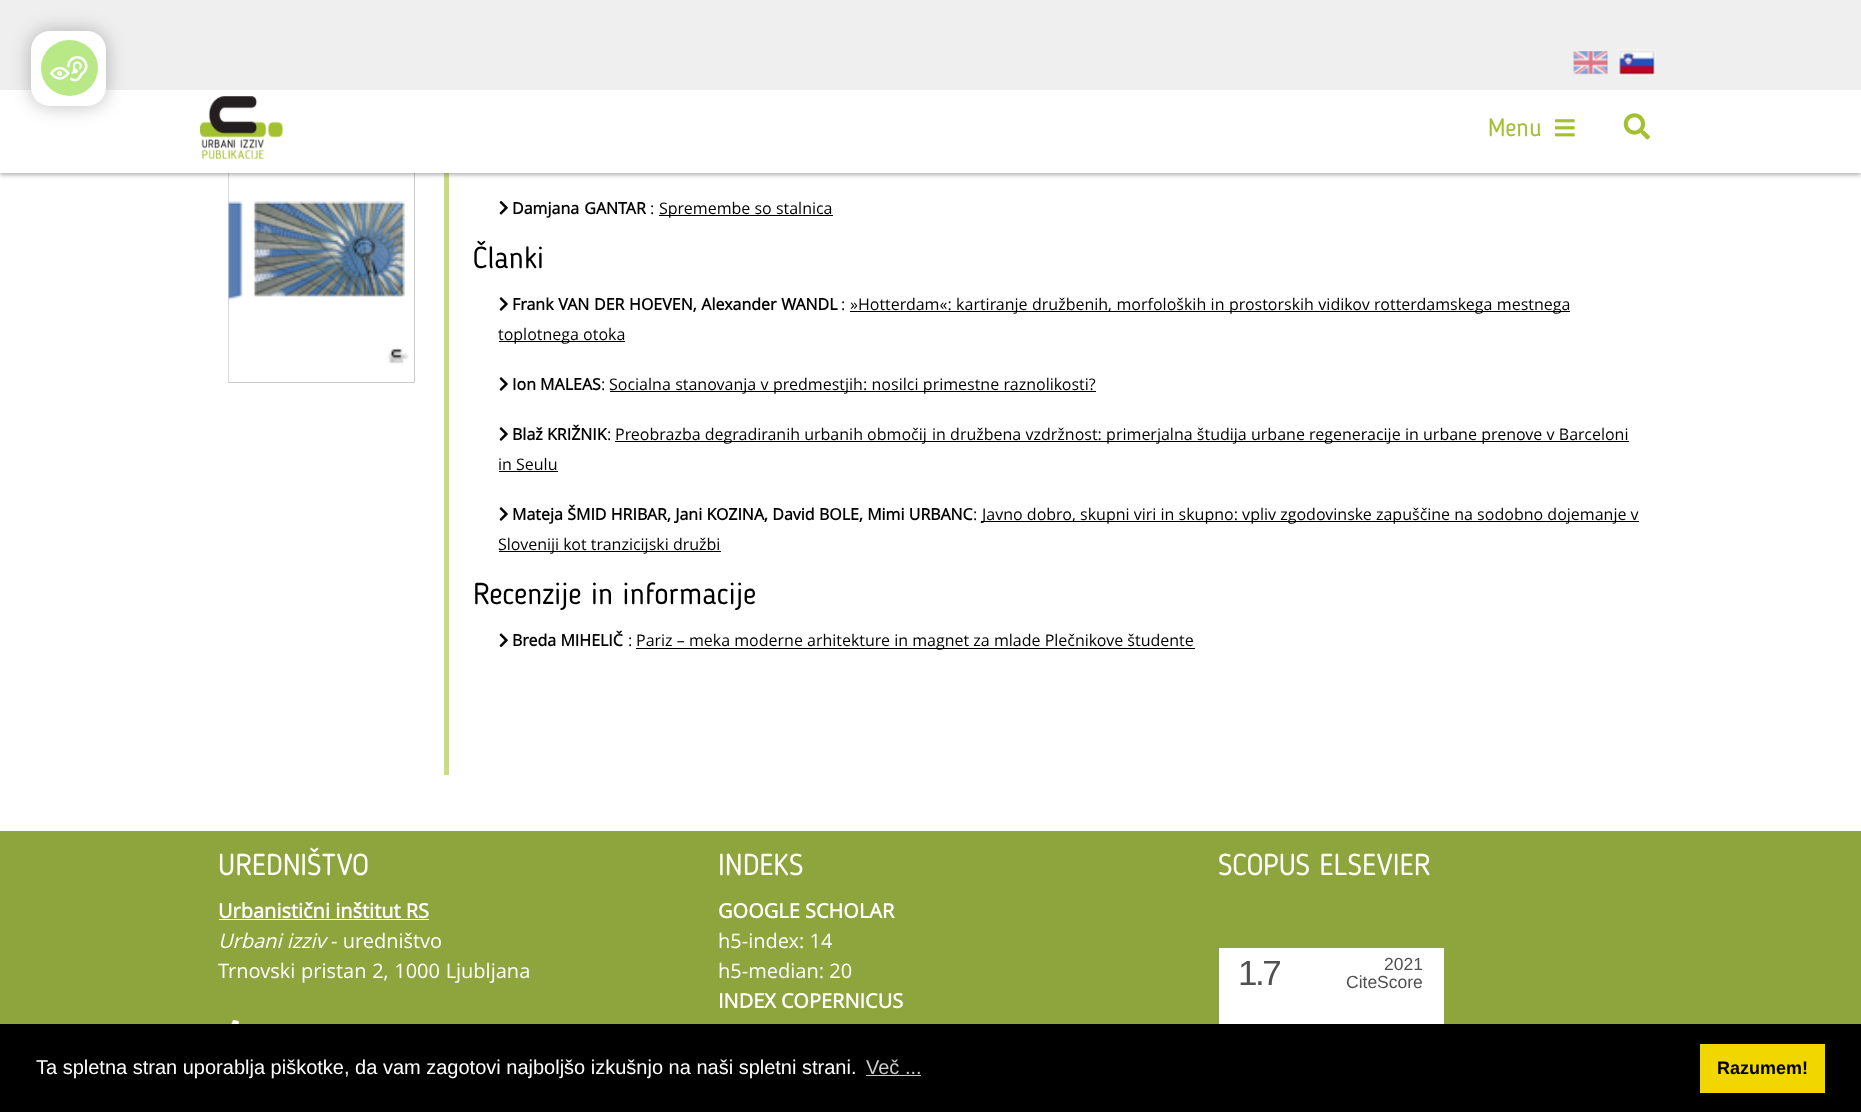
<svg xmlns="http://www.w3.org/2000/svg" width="1861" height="1112">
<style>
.a{font:25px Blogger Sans;fill:#a2c02f}
.b{font:bold 16px Open Sans;fill:#000}
.c{font:16px Open Sans;fill:#000}
.d{font:30px Blogger Sans;fill:#000}
.e{font:30px Blogger Sans;fill:#fff}
.f{font:bold 20px Open Sans;fill:#fff}
.g{font:italic 20px Open Sans;fill:#fff}
.h{font:20px Open Sans;fill:#fff}
.i{font:35px Liberation Sans;letter-spacing:-2.5px;fill:#505050}
.j{font:17.5px Liberation Sans;fill:#505050}
.k{font:20px Liberation Sans;fill:#fff}
.l{font:20px Liberation Sans;fill:#ccc}
.m{font:bold 18px Liberation Sans;fill:#000}
</style>
<rect width="100%" height="100%" fill="#fff"/>
<path fill="none" stroke="#ccc" d="M228.5 121.5h186v261H228.5z"/>
<image href="7.png" x="228" y="173" width="181" height="208"/>
<path fill="#c9dc81" d="M444 173h5v602H444z"/>
<path fill="#0000004d" filter="blur(2px)" d="M0 3h1861v172H0z"/>
<path fill="#fff" d="M0 90h1861v83H0z"/>
<path fill="#efefef" d="M0 0h1861v90H0z"/>
<rect fill="#00000042" filter="blur(9.5px)" x="31" y="31" width="75" height="75" rx="19"/>
<rect fill="#fff" x="31" y="31" width="75" height="75" rx="19"/>
<rect fill="#b8e986" x="41" y="40" width="57" height="56" rx="28"/>
<image href="1.png" x="50" y="56" width="38" height="26"/>
<image href="2.png" x="1573" y="51" width="35" height="24"/>
<path fill="none" stroke="#f4f4f4" d="M1618.5 49.5h37v26H1618.5z"/>
<image href="3.png" x="1619" y="51" width="36" height="24"/>
<image href="4.png" x="200" y="96" width="83" height="63"/>
<image href="5.png" x="1555" y="119" width="20" height="18"/>
<image href="6.png" x="1623" y="113" width="27" height="27"/>
<image href="8.png" x="499" y="201" width="9" height="14"/>
<path fill="#000" d="M659 215h174v1H659z"/>
<image href="9.png" x="499" y="297" width="9" height="14"/>
<path fill="#000" d="M850 311h720v1H850z"/>
<path fill="#000" d="M499 341h126v1H499z"/>
<image href="9.png" x="499" y="377" width="9" height="14"/>
<path fill="#000" d="M610 391h486v1H610z"/>
<image href="9.png" x="499" y="427" width="9" height="14"/>
<path fill="#000" d="M615 441h1014v1H615z"/>
<path fill="#000" d="M499 471h59v1H499z"/>
<image href="9.png" x="499" y="507" width="9" height="14"/>
<path fill="#000" d="M981 521h658v1H981z"/>
<path fill="#000" d="M499 551h222v1H499z"/>
<image href="10.png" x="499" y="633" width="9" height="14"/>
<path fill="#000" d="M636 648h559v1H636z"/>
<path fill="#8ea43c" d="M0 831h1861v193H0z"/>
<path fill="#fff" d="M219 919h210v1H219z"/>
<image href="11.png" x="231" y="1020" width="8" height="4"/>
<path fill="#fff" d="M1219 948h225v76H1219z"/>
<path fill="#000" d="M0 1024h1861v88H0z"/>
<path fill="#ccc" d="M866 1075h55v1H866z"/>
<path fill="#f1d600" d="M1700 1044h125v49H1700z"/>
<text class="a" x="1488" y="136">Menu</text>
<text class="b" x="512" y="214" word-spacing="1">Damjana GANTAR</text>
<text class="c" x="650" y="214">:</text>
<text class="c" x="659" y="214">Spremembe so stalnica</text>
<text class="d" x="473" y="268">Članki</text>
<text class="b" x="512" y="310" word-spacing="0.5">Frank VAN DER HOEVEN, Alexander WANDL</text>
<text class="c" x="841" y="310">:</text>
<text class="c" x="850" y="310" word-spacing="0.25">»Hotterdam«: kartiranje družbenih, morfoloških in prostorskih vidikov rotterdamskega mestnega</text>
<text class="c" x="498" y="340">toplotnega otoka</text>
<text class="b" x="512" y="390">Ion MALEAS</text>
<text class="c" x="601" y="390">:</text>
<text class="c" x="609" y="390" word-spacing="0.25">Socialna stanovanja v predmestjih: nosilci primestne raznolikosti?</text>
<text class="b" x="512" y="440">Blaž KRIŽNIK</text>
<text class="c" x="607" y="440">:</text>
<text class="c" x="615" y="440">Preobrazba degradiranih urbanih območij</text>
<text class="c" x="932" y="440" word-spacing="0.1">in družbena vzdržnost: primerjalna študija urbane regeneracije in urbane prenove v Barceloni</text>
<text class="c" x="498" y="470">in Seulu</text>
<text class="b" x="512" y="520" word-spacing="0.1">Mateja ŠMID HRIBAR, Jani KOZINA, David BOLE, Mimi URBANC</text>
<text class="c" x="973" y="520">:</text>
<text class="c" x="982" y="520">Javno dobro, skupni viri in skupno: vpliv zgodovinske zapuščine na sodobno dojemanje v</text>
<text class="c" x="498" y="550">Sloveniji kot tranzicijski družbi</text>
<text class="d" x="473" y="604">Recenzije in informacije</text>
<text class="b" x="512" y="646">Breda MIHELIČ</text>
<text class="c" x="628" y="646">:</text>
<text class="c" x="636" y="646">Pariz – meka moderne arhitekture in magnet za mlade Plečnikove študente</text>
<text class="e" x="218" y="875">UREDNIŠTVO</text>
<text class="f" x="218" y="918">Urbanistični inštitut RS</text>
<text class="g" x="218" y="948">Urbani izziv</text>
<text class="h" x="331" y="948">- uredništvo</text>
<text class="h" x="218" y="978" word-spacing="0.5">Trnovski pristan 2, 1000 Ljubljana</text>
<text class="e" x="718" y="875">INDEKS</text>
<text class="f" x="718" y="918">GOOGLE SCHOLAR</text>
<text class="h" x="718" y="948">h5-index: 14</text>
<text class="h" x="718" y="978">h5-median: 20</text>
<text class="f" x="718" y="1008">INDEX COPERNICUS</text>
<text class="e" x="1218" y="875">SCOPUS ELSEVIER</text>
<text class="i" x="1238" y="985">1.7</text>
<text class="j" x="1384" y="970">2021</text>
<text class="j" x="1346" y="988">CiteScore</text>
<text class="k" x="36" y="1074">Ta spletna stran uporablja piškotke, da vam zagotovi najboljšo izkušnjo na naši spletni strani.</text>
<text class="l" x="866" y="1074">Več ...</text>
<text class="m" x="1717" y="1074">Razumem!</text>
</svg>
